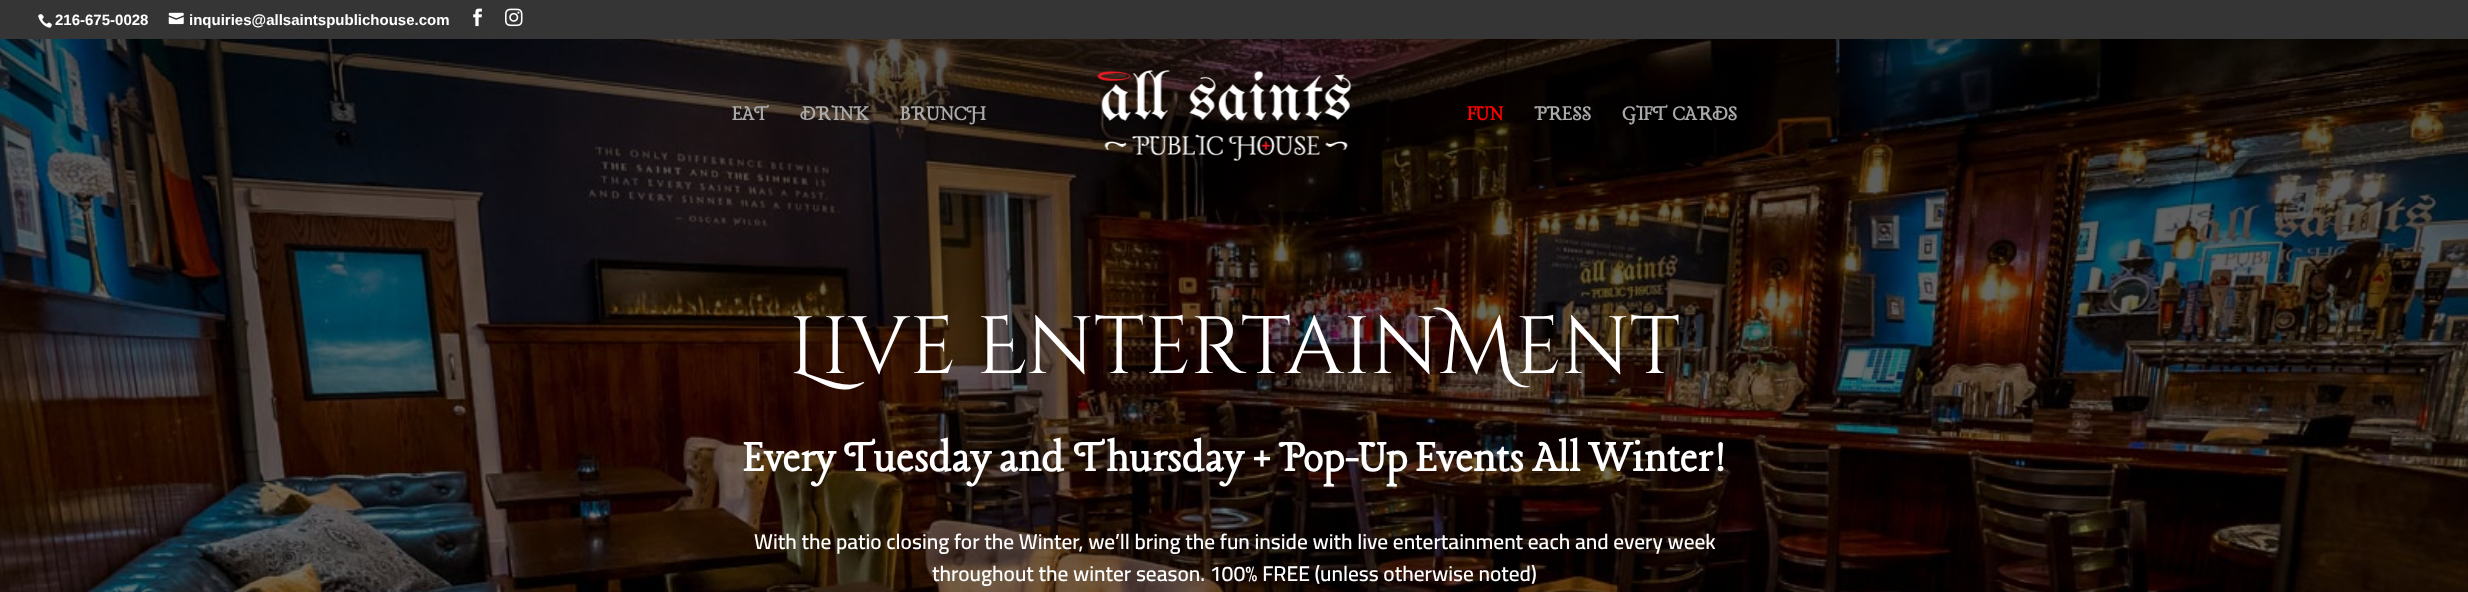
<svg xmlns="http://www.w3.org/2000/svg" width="2468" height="592">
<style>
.a{font:bold 15px Liberation Sans;fill:#fff}
.b{font:bold 22.5px Lancelot;fill:#aaa}
.c{font:bold 22.5px Lancelot;fill:#f00}
.d{font:81.25px Cinzel Decorative;fill:#fff}
.e{font:bold 47.5px Lancelot;fill:#fff}
.f{font:600 21.25px Cairo;fill:#fff}
</style>
<rect width="100%" height="100%" fill="#fff"/>
<path fill="#353535" d="M0 0h2468v39H0z"/>
<image href="1.png" x="38" y="14" width="14" height="14"/>
<image href="2.png" x="168" y="12" width="16" height="13"/>
<image href="3.png" x="473" y="8" width="9" height="19"/>
<image href="4.png" x="505" y="8" width="18" height="19"/>
<image href="6.png" x="0" y="39" width="2468" height="553"/>
<image href="5.png" x="1097" y="70" width="255" height="91"/>
<text class="a" x="55" y="25">216-675-0028</text>
<text class="a" x="189" y="25">inquiries@allsaintspublichouse.com</text>
<text class="b" x="732" y="120">EAT</text>
<text class="b" x="800" y="120">DRINK</text>
<text class="b" x="900" y="120">BRUNCH</text>
<text class="c" x="1467" y="120">FUN</text>
<text class="b" x="1534" y="120">PRESS</text>
<text class="b" x="1622" y="120">GIFT CARDS</text>
<text class="d" x="789" y="373">Live EntertainMent</text>
<text class="e" x="743" y="471">Every Tuesday and Thursday + Pop-Up Events All Winter!</text>
<text class="f" x="754" y="549">With the patio closing for the Winter, we’ll bring the fun inside with live entertainment each and every week</text>
<text class="f" x="932" y="581">throughout the winter season. 100% FREE (unless otherwise noted)</text>
</svg>
